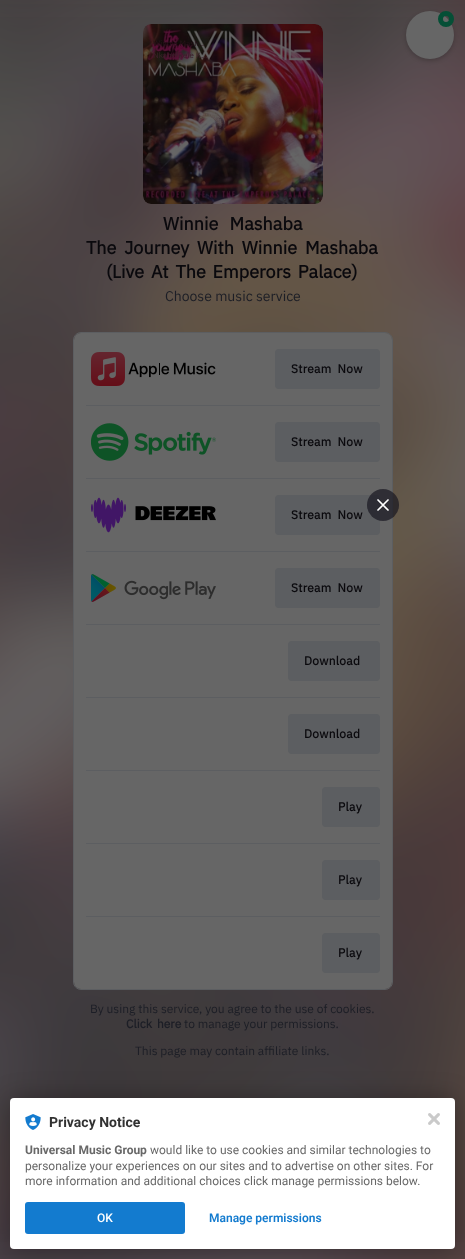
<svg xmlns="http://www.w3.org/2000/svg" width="465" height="1259">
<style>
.a{font:8px IBM Plex Sans;fill:#28121a}
.b{font:8px IBM Plex Sans;fill:#3c202a}
.c{font:bold 18px IBM Plex Sans;fill:#0a090d}
.d{font:14px IBM Plex Sans;fill:#1c1e26}
.e{font:bold 12px IBM Plex Sans;letter-spacing:0.25px;fill:#0a090d}
.f{font:12px IBM Plex Sans;fill:#1c1e26}
.g{font:bold 12px IBM Plex Sans;fill:#1c1e26}
.h{font:bold 14px Roboto;fill:#323232}
.i{font:bold 12px Roboto;fill:#686868}
.j{font:12px Roboto;fill:#686868}
.k{font:500 12px Roboto;fill:#fff}
.l{font:600 12px Roboto;fill:#137bcf}
</style>
<rect width="100%" height="100%" fill="#666"/>
<image href="1.png" x="0" y="0" width="465" height="1259"/>
<image href="2.png" x="143" y="24" width="180" height="180"/>
<rect fill="none" stroke="#5c5e61" x="73.5" y="332.5" width="319" height="657" rx="7.5"/>
<rect fill="#666" x="74" y="333" width="318" height="656" rx="7"/>
<image href="3.png" x="91" y="352" width="125" height="34"/>
<rect fill="#5c5e61" x="275" y="349" width="105" height="40" rx="4"/>
<path fill="#5c5e61" d="M86 405h294v1H86z"/>
<image href="4.png" x="91" y="423" width="125" height="38"/>
<rect fill="#5c5e61" x="275" y="422" width="105" height="40" rx="4"/>
<path fill="#5c5e61" d="M86 478h294v1H86z"/>
<image href="5.png" x="91" y="497" width="125" height="36"/>
<rect fill="#5c5e61" x="275" y="495" width="105" height="40" rx="4"/>
<path fill="#5c5e61" d="M86 551h294v1H86z"/>
<image href="6.png" x="91" y="574" width="125" height="28"/>
<rect fill="#5c5e61" x="275" y="568" width="105" height="40" rx="4"/>
<path fill="#5c5e61" d="M86 624h294v1H86z"/>
<rect fill="#5c5e61" x="288" y="641" width="92" height="40" rx="4"/>
<path fill="#5c5e61" d="M86 697h294v1H86z"/>
<rect fill="#5c5e61" x="288" y="714" width="92" height="40" rx="4"/>
<path fill="#5c5e61" d="M86 770h294v1H86z"/>
<rect fill="#5c5e61" x="322" y="787" width="58" height="40" rx="4"/>
<path fill="#5c5e61" d="M86 843h294v1H86z"/>
<rect fill="#5c5e61" x="322" y="860" width="58" height="40" rx="4"/>
<path fill="#5c5e61" d="M86 916h294v1H86z"/>
<rect fill="#5c5e61" x="322" y="933" width="58" height="40" rx="4"/>
<rect fill="#00000033" filter="blur(2px)" x="406" y="13" width="48" height="48" rx="24"/>
<circle fill="#666" cx="430" cy="35" r="24"/>
<circle fill="none" stroke="#054f36" stroke-width="5" cx="446" cy="19" r="5.5"/>
<circle fill="#181721b3" cx="383" cy="505" r="16"/>
<path fill="none" stroke="#fff" stroke-width="1.7" stroke-linecap="round" stroke-linejoin="round" d="M378 500l10 10m-10 0l10-10"/>
<rect fill="#0000004d" filter="blur(12px)" x="10" y="1098" width="445" height="151" rx="4"/>
<rect fill="#fff" x="10" y="1098" width="445" height="151" rx="4"/>
<image href="7.png" x="428" y="1113" width="12" height="12"/>
<image href="8.png" x="25" y="1114" width="16" height="16"/>
<rect fill="#137bcf" x="25" y="1202" width="160" height="32" rx="3"/>
<text class="a" x="153" y="46">Winnie Mash…</text>
<text class="b" x="153" y="58">Nkabe Rele K…</text>
<text class="c" x="163" y="230" word-spacing="7">Winnie Mashaba</text>
<text class="c" x="86" y="254" word-spacing="3.5">The Journey With Winnie Mashaba</text>
<text class="c" x="106" y="278" word-spacing="2.5">(Live At The Emperors Palace)</text>
<text class="d" x="165" y="301">Choose music service</text>
<text class="e" x="291" y="373" word-spacing="3">Stream Now</text>
<text class="e" x="291" y="446" word-spacing="3">Stream Now</text>
<text class="e" x="291" y="519" word-spacing="3">Stream Now</text>
<text class="e" x="291" y="592" word-spacing="3">Stream Now</text>
<text class="e" x="304" y="665">Download</text>
<text class="e" x="304" y="738">Download</text>
<text class="e" x="338" y="811">Play</text>
<text class="e" x="338" y="884">Play</text>
<text class="e" x="338" y="957">Play</text>
<text class="f" x="90" y="1013">By using this service, you agree to the use of cookies.</text>
<text class="g" x="126" y="1028" word-spacing="2">Click here</text>
<text class="f" x="184" y="1028">to manage your permissions.</text>
<text class="f" x="135" y="1055">This page may contain affiliate links.</text>
<text class="h" x="49" y="1127">Privacy Notice</text>
<text class="i" x="25" y="1154">Universal Music Group</text>
<text class="j" x="150" y="1154">would like to use cookies and similar technologies to</text>
<text class="j" x="25" y="1170">personalize your experiences on our sites and to advertise on other sites. For</text>
<text class="j" x="25" y="1185">more information and additional choices click manage permissions below.</text>
<text class="k" x="97" y="1222">OK</text>
<text class="l" x="209" y="1222">Manage permissions</text>
</svg>
